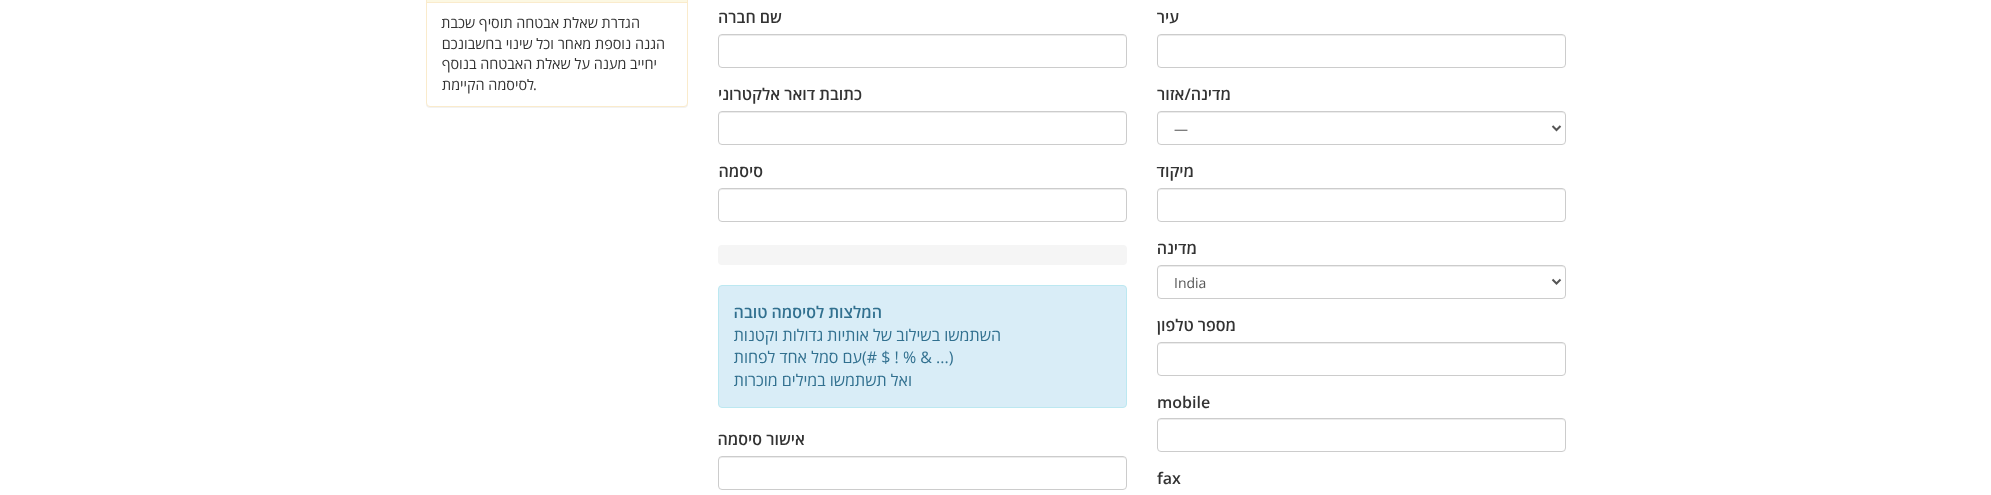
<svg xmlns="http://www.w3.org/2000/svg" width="1991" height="495">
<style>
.a{font:600 16px Open Sans;direction:rtl;fill:#333}
.b{font:14px Open Sans;fill:#555}
.c{font:600 16px Open Sans;fill:#333}
.d{font:600 16px Open Sans;direction:rtl;fill:#31708f}
.e{font:16px Open Sans;direction:rtl;fill:#31708f}
.f{font:16px Open Sans;fill:#31708f}
.g{font:14.4px Open Sans;direction:rtl;fill:#333}
.h{font:14.4px Open Sans;fill:#333}
</style>
<rect width="100%" height="100%" fill="#fff"/>
<path fill="#ececec" d="M1161 36h401c2 0 3 1 3 3c0-2-1-4-3-4h-401c-2 0-3 2-3 4c0-2 1-3 3-3z"/>
<rect fill="none" stroke="#ccc" x="1157.5" y="34.5" width="408" height="33" rx="3.5"/>
<path fill="#ececec" d="M1161 113h401c2 0 3 1 3 3c0-2-1-4-3-4h-401c-2 0-3 2-3 4c0-2 1-3 3-3z"/>
<rect fill="none" stroke="#ccc" x="1157.5" y="111.5" width="408" height="33" rx="3.5"/>
<path fill="none" stroke="#555" stroke-width="2" d="M1552.5 126l4 4l4-4"/>
<path fill="#ececec" d="M1161 190h401c2 0 3 1 3 3c0-2-1-4-3-4h-401c-2 0-3 2-3 4c0-2 1-3 3-3z"/>
<rect fill="none" stroke="#ccc" x="1157.5" y="188.5" width="408" height="33" rx="3.5"/>
<path fill="#ececec" d="M1161 267h401c2 0 3 1 3 3c0-2-1-4-3-4h-401c-2 0-3 2-3 4c0-2 1-3 3-3z"/>
<rect fill="none" stroke="#ccc" x="1157.5" y="265.5" width="408" height="33" rx="3.5"/>
<path fill="none" stroke="#555" stroke-width="2" d="M1552.5 279.5l4 4l4-4"/>
<path fill="#ececec" d="M1161 344h401c2 0 3 1 3 3c0-2-1-4-3-4h-401c-2 0-3 2-3 4c0-2 1-3 3-3z"/>
<rect fill="none" stroke="#ccc" x="1157.5" y="342.5" width="408" height="33" rx="3.5"/>
<path fill="#ececec" d="M1161 420h401c2 0 3 1 3 3c0-2-1-4-3-4h-401c-2 0-3 2-3 4c0-2 1-3 3-3z"/>
<rect fill="none" stroke="#ccc" x="1157.5" y="418.5" width="408" height="33" rx="3.5"/>
<path fill="#ececec" d="M722 36h401c2 0 3 1 3 3c0-2-1-4-3-4h-401c-2 0-3 2-3 4c0-2 1-3 3-3z"/>
<rect fill="none" stroke="#ccc" x="718.5" y="34.5" width="408" height="33" rx="3.5"/>
<path fill="#ececec" d="M722 113h401c2 0 3 1 3 3c0-2-1-4-3-4h-401c-2 0-3 2-3 4c0-2 1-3 3-3z"/>
<rect fill="none" stroke="#ccc" x="718.5" y="111.5" width="408" height="33" rx="3.5"/>
<path fill="#ececec" d="M722 190h401c2 0 3 1 3 3c0-2-1-4-3-4h-401c-2 0-3 2-3 4c0-2 1-3 3-3z"/>
<rect fill="none" stroke="#ccc" x="718.5" y="188.5" width="408" height="33" rx="3.5"/>
<rect fill="#f5f5f5" x="718" y="245" width="409" height="20" rx="4"/>
<rect fill="#d9edf7" stroke="#bce8f1" x="718.5" y="285.5" width="408" height="122" rx="3.5"/>
<path fill="#ececec" d="M722 458h401c2 0 3 1 3 3c0-2-1-4-3-4h-401c-2 0-3 2-3 4c0-2 1-3 3-3z"/>
<rect fill="none" stroke="#ccc" x="718.5" y="456.5" width="408" height="33" rx="3.5"/>
<rect fill="#0000000d" filter="blur(0.5px)" x="426" y="-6" width="262" height="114" rx="4"/>
<rect fill="#fff" stroke="#faebcc" x="426.5" y="-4.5" width="261" height="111" rx="3.5"/>
<path fill="#fcf8e3" d="M427 0h260v2H427z"/>
<path fill="#faebcc" d="M427 2h260v1H427z"/>
<text class="a" x="1179" y="23">עיר</text>
<text class="a" x="1231" y="100">מדינה/אזור</text>
<text class="b" x="1174" y="134">—</text>
<text class="a" x="1194" y="177">מיקוד</text>
<text class="a" x="1197" y="254">מדינה</text>
<text class="b" x="1174" y="288">India</text>
<text class="a" x="1236" y="331">מספר טלפון</text>
<text class="c" x="1157" y="408">mobile</text>
<text class="c" x="1157" y="484">fax</text>
<text class="a" x="782" y="23">שם חברה</text>
<text class="a" x="862" y="100">כתובת דואר אלקטרוני</text>
<text class="a" x="763" y="177">סיסמה</text>
<text class="d" x="882" y="318">המלצות לסיסמה טובה</text>
<text class="e" x="1001" y="341">השתמשו בשילוב של אותיות גדולות וקטנות</text>
<text class="f" x="862" y="363">(# $ ! % &amp; ...)</text>
<text class="e" x="862" y="363">עם סמל אחד לפחות</text>
<text class="e" x="912" y="386">ואל תשתמשו במילים מוכרות</text>
<text class="a" x="805" y="445">אישור סיסמה</text>
<text class="g" x="640" y="28">הגדרת שאלת אבטחה תוסיף שכבת</text>
<text class="g" x="665" y="49">הגנה נוספת מאחר וכל שינוי בחשבונכם</text>
<text class="g" x="657" y="69">יחייב מענה על שאלת האבטחה בנוסף</text>
<text class="h" x="533" y="90">.</text>
<text class="g" x="534" y="90">לסיסמה הקיימת</text>
</svg>
